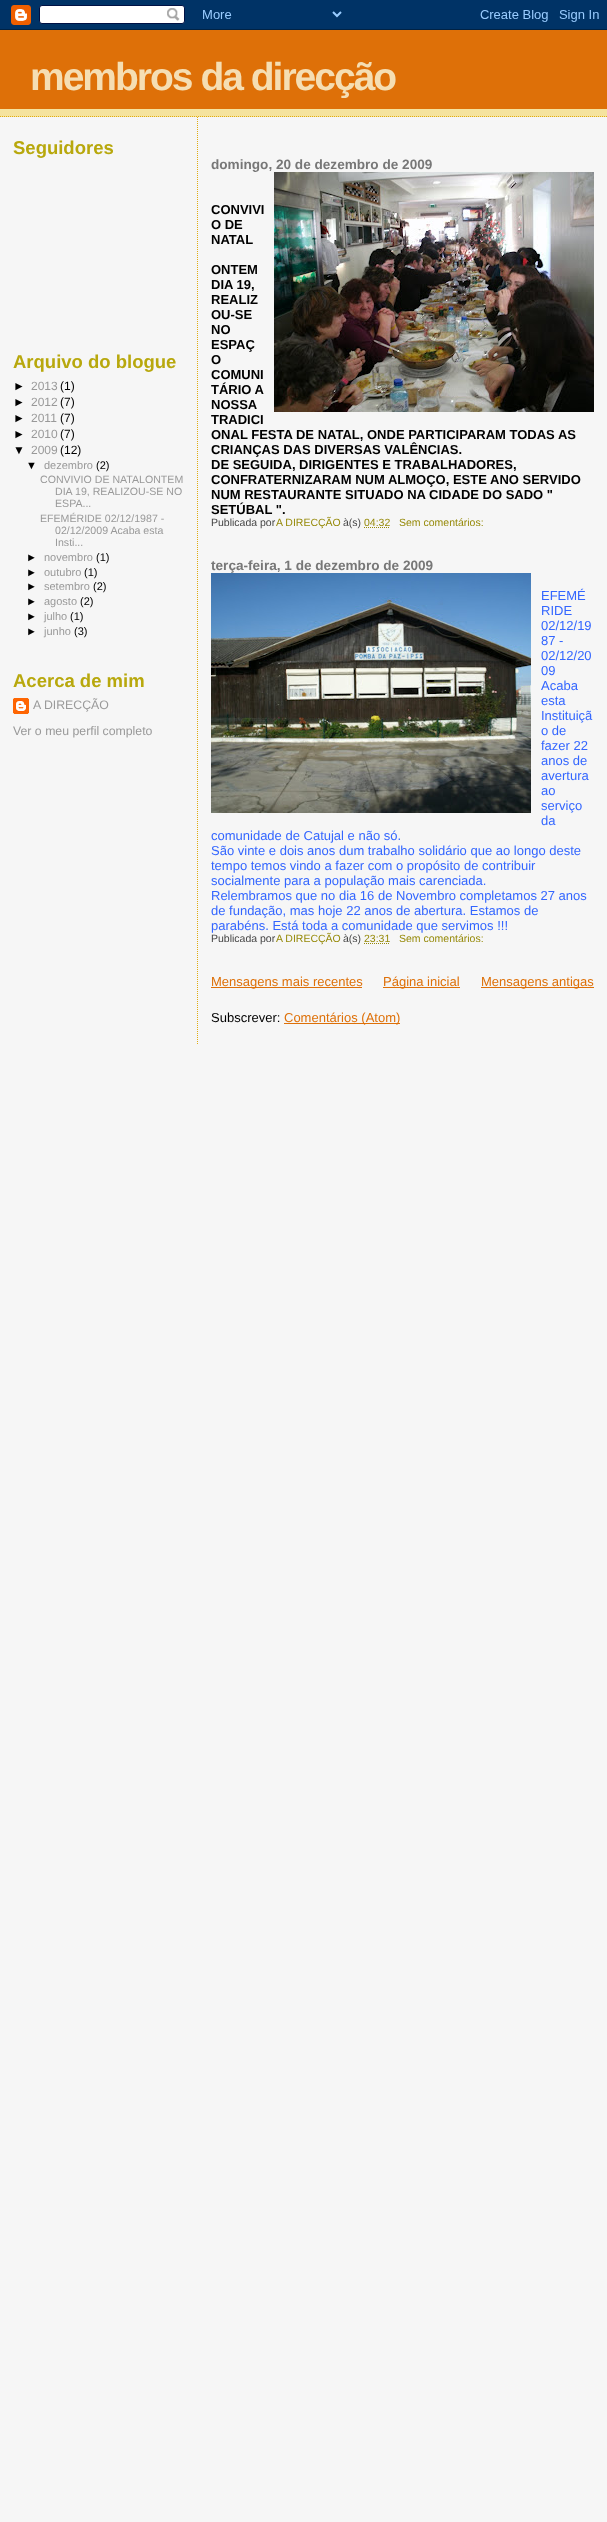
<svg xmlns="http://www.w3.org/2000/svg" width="607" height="2522">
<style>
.a{font:bold 39px Liberation Sans;letter-spacing:-2px;fill:#f5deb3}
.b{font:bold 18.5px Liberation Sans;fill:#b8a80d}
.c{font:12px Liberation Sans;fill:#000}
.d{font:12px Liberation Sans;fill:#999}
.e{font:11px Liberation Sans;fill:#000}
.f{font:11px Liberation Sans;fill:#999}
.g{font:10.6px Liberation Sans;fill:#999}
.h{font:12.3px Liberation Sans;fill:#999}
.i{font:bold 13.6px Liberation Sans;fill:#777}
.j{font:bold 13px Liberation Sans;fill:#000}
.k{font:10.5px Liberation Sans;fill:#444}
.l{font:10.5px Liberation Sans;fill:#968a0a}
.m{font:13px Liberation Sans;fill:#36f}
.n{font:13px Liberation Sans;fill:#de7008}
.o{font:13px Liberation Sans;fill:#000}
</style>
<rect width="100%" height="100%" fill="#f6f6f6"/>
<image href="1.png" x="0" y="0" width="607" height="30"/>
<path fill="#f5e39e" d="M0 109h607v8H0z"/>
<path fill="none" stroke="#e0ad12" stroke-dasharray="1 1" d="M0 116.5h607"/>
<path fill="#de7008" d="M0 30h607v79H0z"/>
<image href="2.png" x="13" y="698" width="16" height="16"/>
<path fill="none" stroke="#e0ad12" stroke-dasharray="1 1" d="M197.5 117v928"/>
<image href="3.png" x="274" y="172" width="320" height="240"/>
<path fill="none" stroke="#968a0a" stroke-dasharray="1 1" d="M364 527.5h26"/>
<image href="4.png" x="211" y="573" width="320" height="240"/>
<path fill="none" stroke="#968a0a" stroke-dasharray="1 1" d="M364 943.5h26"/>
<path fill="#de7008" d="M211 987h151v1H211z"/>
<path fill="#de7008" d="M383 987h77v1H383z"/>
<path fill="#de7008" d="M481 987h113v1H481z"/>
<path fill="#de7008" d="M284 1023h116v1H284z"/>
<text class="a" x="30" y="90">membros da direcção</text>
<text class="b" x="13" y="154">Seguidores</text>
<text class="b" x="13" y="368">Arquivo do blogue</text>
<text class="c" x="13" y="390">►</text>
<text class="d" x="31" y="390">2013</text>
<text class="c" x="60" y="390">(1)</text>
<text class="c" x="13" y="406">►</text>
<text class="d" x="31" y="406">2012</text>
<text class="c" x="60" y="406">(7)</text>
<text class="c" x="13" y="422">►</text>
<text class="d" x="31" y="422">2011</text>
<text class="c" x="60" y="422">(7)</text>
<text class="c" x="13" y="438">►</text>
<text class="d" x="31" y="438">2010</text>
<text class="c" x="60" y="438">(7)</text>
<text class="c" x="13" y="454">▼</text>
<text class="d" x="31" y="454">2009</text>
<text class="c" x="60" y="454">(12)</text>
<text class="e" x="26" y="469">▼</text>
<text class="f" x="44" y="469">dezembro</text>
<text class="e" x="96" y="469">(2)</text>
<text class="g" x="40" y="483">CONVIVIO DE NATALONTEM</text>
<text class="g" x="55" y="495">DIA 19, REALIZOU-SE NO</text>
<text class="g" x="55" y="507">ESPA...</text>
<text class="g" x="40" y="522">EFEMÉRIDE 02/12/1987 -</text>
<text class="g" x="55" y="534">02/12/2009 Acaba esta</text>
<text class="g" x="55" y="546">Insti...</text>
<text class="e" x="26" y="561">►</text>
<text class="f" x="44" y="561">novembro</text>
<text class="e" x="96" y="561">(1)</text>
<text class="e" x="26" y="576">►</text>
<text class="f" x="44" y="576">outubro</text>
<text class="e" x="84" y="576">(1)</text>
<text class="e" x="26" y="590">►</text>
<text class="f" x="44" y="590">setembro</text>
<text class="e" x="93" y="590">(2)</text>
<text class="e" x="26" y="605">►</text>
<text class="f" x="44" y="605">agosto</text>
<text class="e" x="80" y="605">(2)</text>
<text class="e" x="26" y="620">►</text>
<text class="f" x="44" y="620">julho</text>
<text class="e" x="70" y="620">(1)</text>
<text class="e" x="26" y="635">►</text>
<text class="f" x="44" y="635">junho</text>
<text class="e" x="74" y="635">(3)</text>
<text class="b" x="13" y="687">Acerca de mim</text>
<text class="h" x="33" y="709">A DIRECÇÃO</text>
<text class="h" x="13" y="735">Ver o meu perfil completo</text>
<text class="i" x="211" y="169">domingo, 20 de dezembro de 2009</text>
<text class="j" x="211" y="214">CONVIVI</text>
<text class="j" x="211" y="229">O DE</text>
<text class="j" x="211" y="244">NATAL</text>
<text class="j" x="211" y="274">ONTEM</text>
<text class="j" x="211" y="289">DIA 19,</text>
<text class="j" x="211" y="304">REALIZ</text>
<text class="j" x="211" y="319">OU-SE</text>
<text class="j" x="211" y="334">NO</text>
<text class="j" x="211" y="349">ESPAÇ</text>
<text class="j" x="211" y="364">O</text>
<text class="j" x="211" y="379">COMUNI</text>
<text class="j" x="211" y="394">TÁRIO A</text>
<text class="j" x="211" y="409">NOSSA</text>
<text class="j" x="211" y="424">TRADICI</text>
<text class="j" x="211" y="439">ONAL FESTA DE NATAL, ONDE PARTICIPARAM TODAS AS</text>
<text class="j" x="211" y="454">CRIANÇAS DAS DIVERSAS VALÊNCIAS.</text>
<text class="j" x="211" y="469">DE SEGUIDA, DIRIGENTES E TRABALHADORES,</text>
<text class="j" x="211" y="484">CONFRATERNIZARAM NUM ALMOÇO, ESTE ANO SERVIDO</text>
<text class="j" x="211" y="499">NUM RESTAURANTE SITUADO NA CIDADE DO SADO "</text>
<text class="j" x="211" y="514">SETÚBAL ".</text>
<text class="k" x="211" y="526">Publicada por</text>
<text class="l" x="276" y="526">A DIRECÇÃO</text>
<text class="k" x="343" y="526">à(s)</text>
<text class="l" x="364" y="526">04:32</text>
<text class="l" x="399" y="526">Sem comentários:</text>
<text class="i" x="211" y="570">terça-feira, 1 de dezembro de 2009</text>
<text class="m" x="541" y="600">EFEMÉ</text>
<text class="m" x="541" y="615">RIDE</text>
<text class="m" x="541" y="630">02/12/19</text>
<text class="m" x="541" y="645">87 -</text>
<text class="m" x="541" y="660">02/12/20</text>
<text class="m" x="541" y="675">09</text>
<text class="m" x="541" y="690">Acaba</text>
<text class="m" x="541" y="705">esta</text>
<text class="m" x="541" y="720">Instituiçã</text>
<text class="m" x="541" y="735">o de</text>
<text class="m" x="541" y="750">fazer 22</text>
<text class="m" x="541" y="765">anos de</text>
<text class="m" x="541" y="780">avertura</text>
<text class="m" x="541" y="795">ao</text>
<text class="m" x="541" y="810">serviço</text>
<text class="m" x="541" y="825">da</text>
<text class="m" x="211" y="840">comunidade de Catujal e não só.</text>
<text class="m" x="211" y="855">São vinte e dois anos dum trabalho solidário que ao longo deste</text>
<text class="m" x="211" y="870">tempo temos vindo a fazer com o propósito de contribuir</text>
<text class="m" x="211" y="885">socialmente para a população mais carenciada.</text>
<text class="m" x="211" y="900">Relembramos que no dia 16 de Novembro completamos 27 anos</text>
<text class="m" x="211" y="915">de fundação, mas hoje 22 anos de abertura. Estamos de</text>
<text class="m" x="211" y="930">parabéns. Está toda a comunidade que servimos !!!</text>
<text class="k" x="211" y="942">Publicada por</text>
<text class="l" x="276" y="942">A DIRECÇÃO</text>
<text class="k" x="343" y="942">à(s)</text>
<text class="l" x="364" y="942">23:31</text>
<text class="l" x="399" y="942">Sem comentários:</text>
<text class="n" x="211" y="986">Mensagens mais recentes</text>
<text class="n" x="383" y="986">Página inicial</text>
<text class="n" x="481" y="986">Mensagens antigas</text>
<text class="o" x="211" y="1022">Subscrever:</text>
<text class="n" x="284" y="1022">Comentários (Atom)</text>
</svg>
